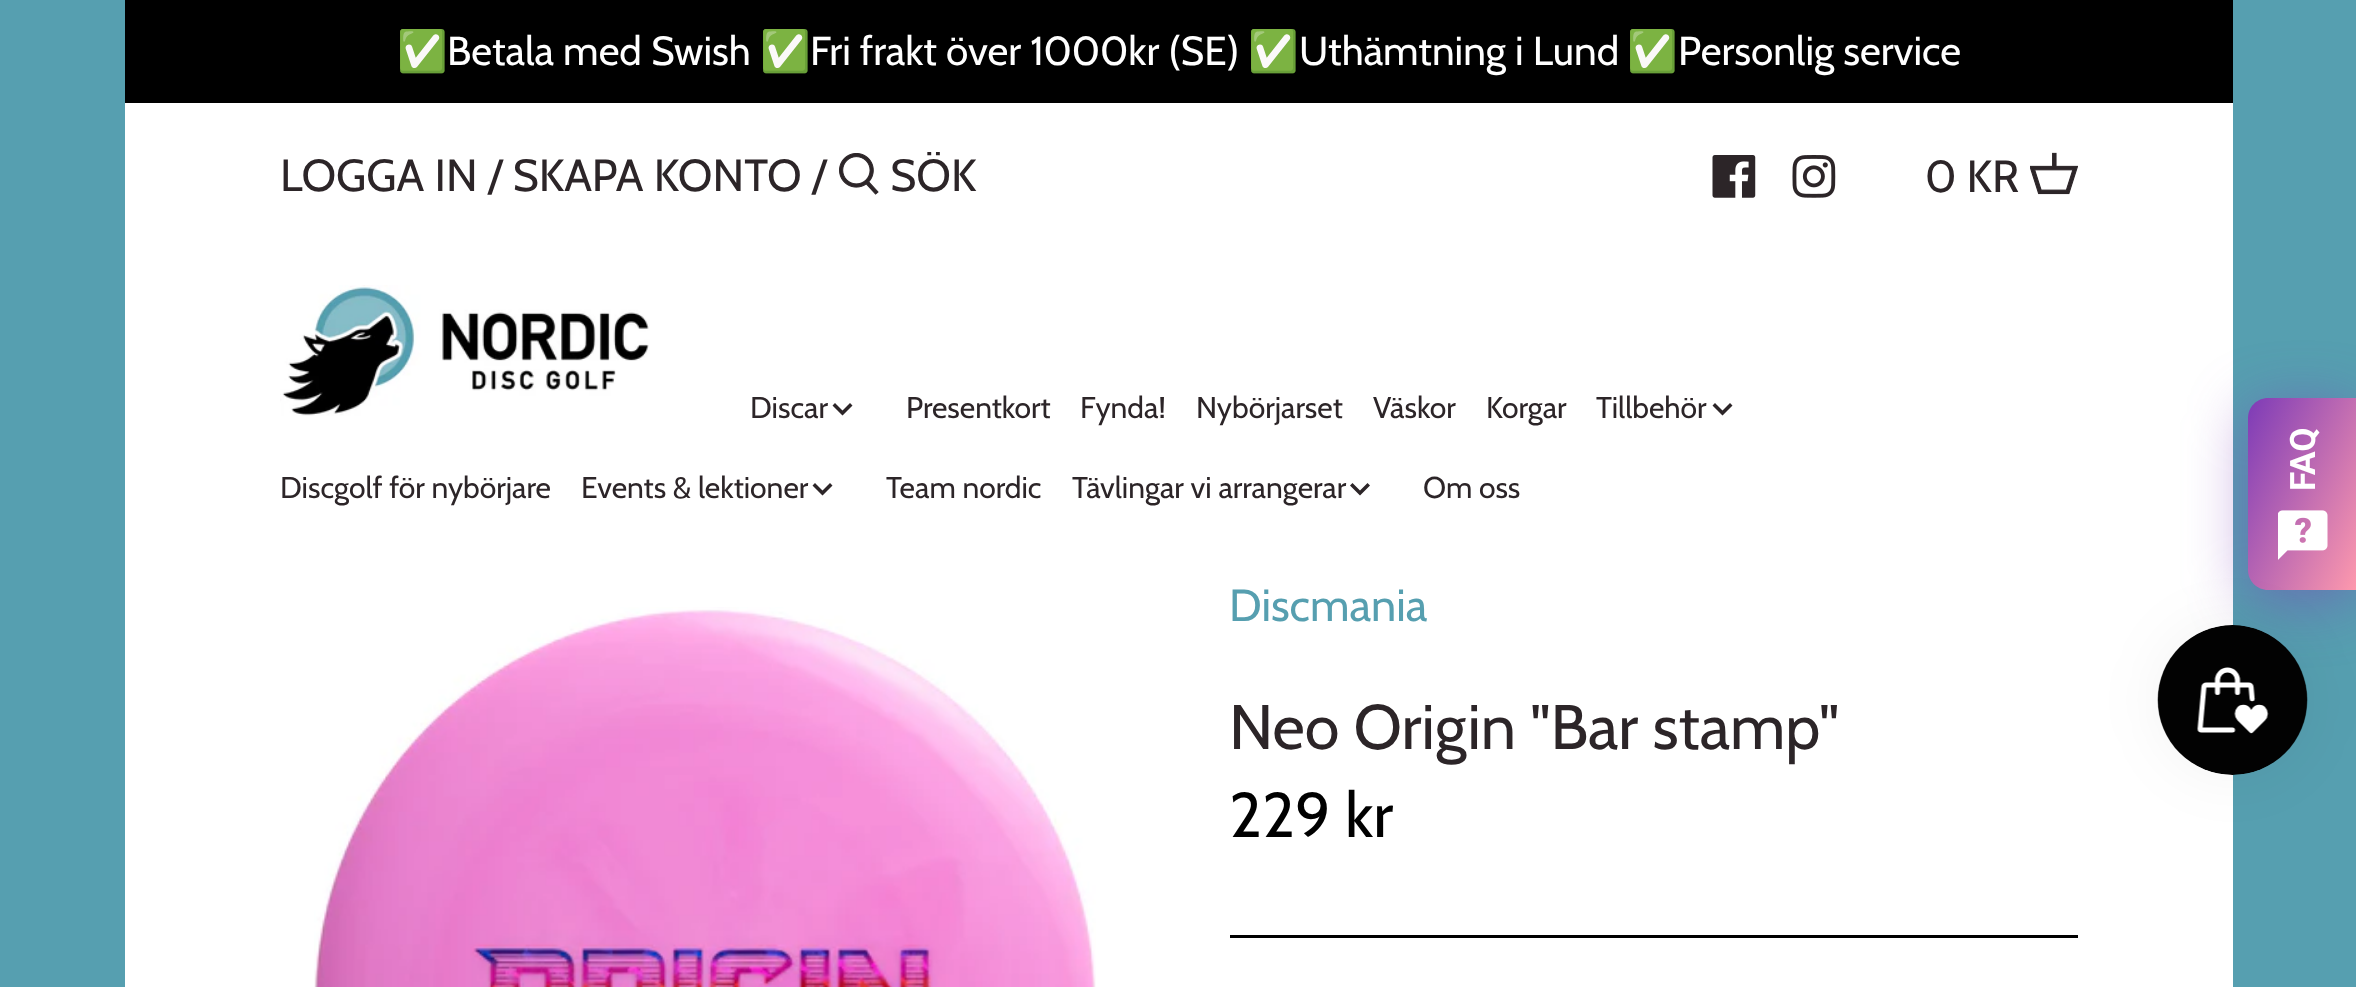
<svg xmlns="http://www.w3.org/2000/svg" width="2356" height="987">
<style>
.a{font:40.5px Noto Color Emoji;fill:#fff}
.b{font:40.5px Cabin;fill:#fff}
.c{font:45px Cabin;fill:#2c2528}
.d{font:30px Cabin;fill:#2c2528}
.e{font:45px Cabin;fill:#569fb0}
.f{font:63px Cabin;fill:#2c2528}
.g{font:63px Cabin;fill:#000}
.h{font:bold 35px Roboto;fill:#fff}
</style>
<defs>
<linearGradient id="g1" gradientUnits="userSpaceOnUse" x1="2220" y1="456" x2="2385" y2="532"><stop offset="0" stop-color="#7c3ab7"/><stop offset="1" stop-color="#ff9aad"/></linearGradient>
</defs>
<rect width="100%" height="100%" fill="#569fb0"/>
<path fill="#fff" d="M125 103h2108v884H125z"/>
<path fill="#000" d="M125 0h2108v103H125z"/>
<image href="1.png" x="839" y="153" width="40" height="42"/>
<image href="2.png" x="1712" y="155" width="44" height="43"/>
<image href="3.png" x="1792" y="155" width="44" height="43"/>
<image href="4.png" x="2030" y="152" width="48" height="43"/>
<image href="5.png" x="280" y="285" width="370" height="131"/>
<path fill="#2c2528" d="M835 403l7.5 7.5l7.5-7.5l2.5 2.5l-10 10l-10-10z"/>
<path fill="#2c2528" d="M1715 403l7.5 7.5l7.5-7.5l2.5 2.5l-10 10l-10-10z"/>
<path fill="#2c2528" d="M815 483l7.5 7.5l7.5-7.5l2.5 2.5l-10 10l-10-10z"/>
<path fill="#2c2528" d="M1352.5 483l7.5 7.5l7.5-7.5l2.5 2.5l-10 10l-10-10z"/>
<image href="6.png" x="314" y="607" width="782" height="380"/>
<path fill="#000" d="M1230 935h848v3H1230z"/>
<rect fill="#7c3ab780" filter="blur(30px)" x="2248" y="408" width="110" height="192" rx="20"/>
<path fill="url(#g1)" d="M2268 398h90v192h-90c-11 0-20-9-20-20v-152c0-11 9-20 20-20z"/>
<image href="7.png" x="2278" y="510" width="50" height="50"/>
<rect fill="#0000000d" filter="blur(31px)" x="2158" y="625" width="150" height="150" rx="75"/>
<image href="8.png" x="2157" y="625" width="151" height="150"/>
<text class="a" x="397" y="65">✅</text>
<text class="b" x="447" y="65">Betala med Swish</text>
<text class="a" x="760" y="65">✅</text>
<text class="b" x="810" y="65">Fri frakt över 1000kr (SE)</text>
<text class="a" x="1248" y="65">✅</text>
<text class="b" x="1299" y="65">Uthämtning i Lund</text>
<text class="a" x="1627" y="65">✅</text>
<text class="b" x="1678" y="65">Personlig service</text>
<text class="c" x="280" y="191">LOGGA IN / SKAPA KONTO /</text>
<text class="c" x="890" y="191">SÖK</text>
<text class="c" x="1925" y="192">0 KR</text>
<text class="d" x="750" y="418">Discar</text>
<text class="d" x="906" y="418">Presentkort</text>
<text class="d" x="1080" y="418">Fynda!</text>
<text class="d" x="1196" y="418">Nybörjarset</text>
<text class="d" x="1373" y="418">Väskor</text>
<text class="d" x="1486" y="418">Korgar</text>
<text class="d" x="1596" y="418">Tillbehör</text>
<text class="d" x="280" y="498">Discgolf för nybörjare</text>
<text class="d" x="581" y="498">Events &amp; lektioner</text>
<text class="d" x="886" y="498">Team nordic</text>
<text class="d" x="1072" y="498">Tävlingar vi arrangerar</text>
<text class="d" x="1423" y="498">Om oss</text>
<text class="e" x="1229" y="621">Discmania</text>
<text class="f" x="1229" y="749">Neo Origin "Bar stamp"</text>
<text class="g" x="1229" y="837">229 kr</text>
<text class="h" x="2315" y="491" transform="rotate(-90 2315 491)">FAQ</text>
</svg>
